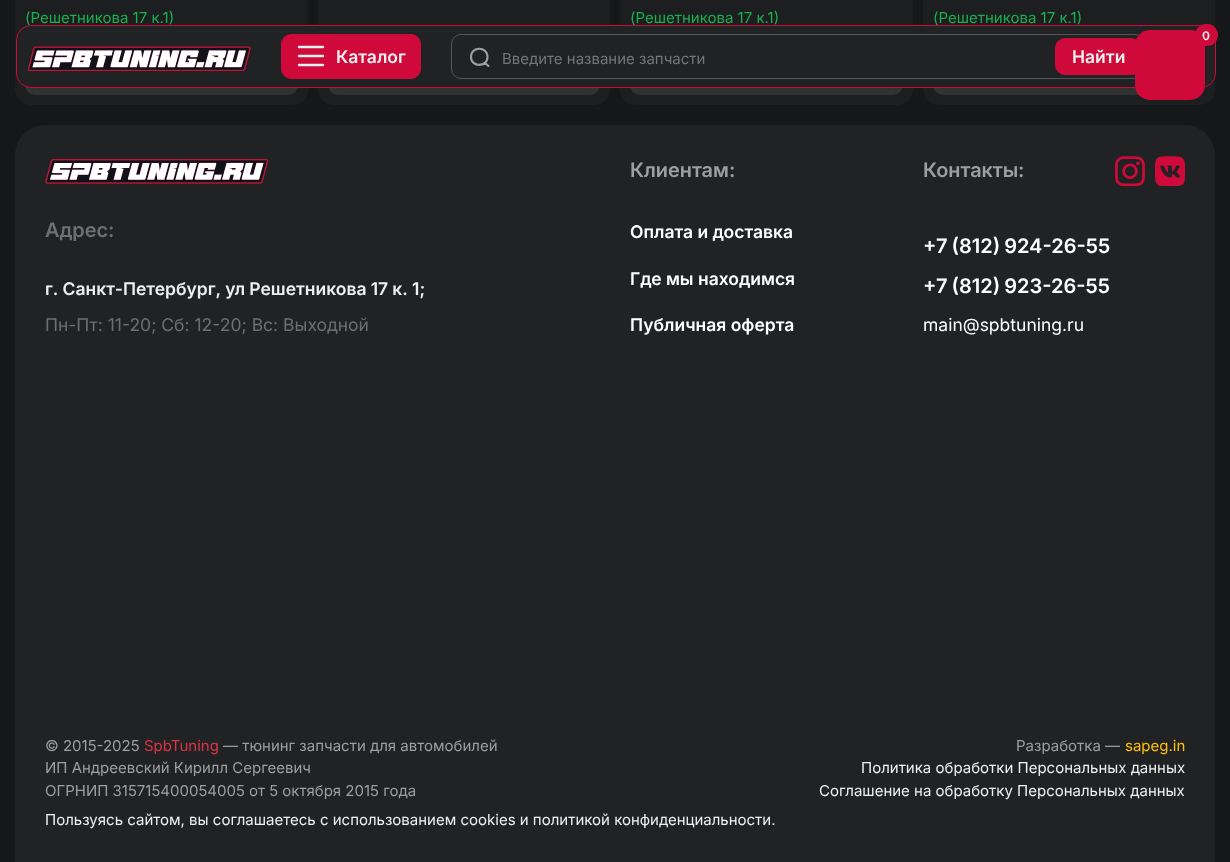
<svg xmlns="http://www.w3.org/2000/svg" width="1230" height="862">
<style>
.a{font:15px Inter;fill:#18b14d}
.b{font:600 12px 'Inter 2';fill:#f0f0f0}
.c{font:600 17.5px 'Inter 2';fill:#f0f0f0}
.d{font:15px Inter;fill:#757575}
.e{font:600 20px Inter;fill:#6e6f70}
.f{font:600 20px 'Inter 2';fill:#6e6f70}
.g{font:17.5px Inter;fill:#6e6f70}
.h{font:600 20px Inter;fill:#9e9fa0}
.i{font:600 20px 'Inter 2';fill:#9e9fa0}
.j{font:600 17.5px 'Inter 2';fill:#fff}
.k{font:600 20px 'Inter 2';fill:#fff}
.l{font:17.5px Inter;fill:#fff}
.m{font:15px Inter;fill:#9e9fa0}
.n{font:15px Inter;fill:#dc3545}
.o{font:15px Inter;fill:#ffc107}
.p{font:15px Inter;fill:#f0f0f0}
</style>
<rect width="100%" height="100%" fill="#151718"/>
<rect fill="#1c1e1f" x="15" y="-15" width="293" height="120" rx="15"/>
<rect fill="#303233" x="25" y="45" width="273" height="50" rx="10"/>
<rect fill="#1c1e1f" x="318" y="-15" width="292" height="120" rx="15"/>
<rect fill="#303233" x="328" y="45" width="272" height="50" rx="10"/>
<rect fill="#1c1e1f" x="620" y="-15" width="293" height="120" rx="15"/>
<rect fill="#303233" x="630" y="45" width="273" height="50" rx="10"/>
<rect fill="#1c1e1f" x="923" y="-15" width="292" height="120" rx="15"/>
<rect fill="#303233" x="933" y="45" width="272" height="50" rx="10"/>
<path fill="#202223" d="M45 125h1140c16.5 0 30 13.5 30 30v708h-1200v-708c0-16.5 13.5-30 30-30z"/>
<image href="2.png" x="45" y="159" width="224" height="25"/>
<image href="3.png" x="1115" y="156" width="30" height="30"/>
<image href="4.png" x="1155" y="156" width="30" height="30"/>
<text class="a" x="25" y="23">(Решетникова 17 к.1)</text>
<text class="a" x="630" y="23">(Решетникова 17 к.1)</text>
<text class="a" x="933" y="23">(Решетникова 17 к.1)</text>
<rect fill="#202223" stroke="#cf0939" x="16.5" y="25.5" width="1199" height="62" rx="14.5"/>
<rect fill="#cf0939" x="1195" y="24" width="23" height="22" rx="11"/>
<text class="b" x="1202" y="40">0</text>
<image href="1.png" x="28" y="46" width="223" height="25"/>
<rect fill="#cf0939" stroke="#cf0939" x="281.5" y="34.5" width="139" height="44" rx="9.5"/>
<path fill="none" stroke="#f0f0f0" stroke-width="2.5" stroke-linecap="round" d="M323 65h-24m24-9h-24m24-9h-24"/>
<text class="c" x="336" y="63">Каталог</text>
<rect fill="none" stroke="#555558" x="451.5" y="34.5" width="693" height="44" rx="9.5"/>
<path fill="none" stroke="#9e9fa0" stroke-width="2.1" stroke-linecap="round" d="M485 63l3.5 3m-1-9c0 10.5-16.5 10.5-16.5 0c0-11 16.5-11 16.5 0z"/>
<text class="d" x="502" y="64">Введите название запчасти</text>
<rect fill="#cf0939" stroke="#cf0939" x="1055.5" y="38.5" width="85" height="36" rx="9.5"/>
<text class="c" x="1072" y="63">Найти</text>
<rect fill="#cf0939" x="1135" y="30" width="70" height="70" rx="15"/>
<text class="e" x="45" y="237">Адрес</text>
<text class="f" x="108" y="237">:</text>
<text class="c" x="45" y="295" word-spacing="-0.25">г. Санкт-Петербург, ул Решетникова 17 к. 1;</text>
<text class="g" x="45" y="331">Пн-Пт: 11-20; Сб: 12-20; Вс: Выходной</text>
<text class="h" x="630" y="177">Клиентам</text>
<text class="i" x="729" y="177">:</text>
<text class="j" x="630" y="238">Оплата и доставка</text>
<text class="j" x="630" y="285">Где мы находимся</text>
<text class="j" x="630" y="331">Публичная оферта</text>
<text class="h" x="923" y="177">Контакты</text>
<text class="i" x="1018" y="177">:</text>
<text class="k" x="923" y="253" word-spacing="-1">+7 (812) 924-26-55</text>
<text class="k" x="923" y="293" word-spacing="-1">+7 (812) 923-26-55</text>
<text class="l" x="923" y="331">main@spbtuning.ru</text>
<text class="m" x="45" y="751">© 2015-2025</text>
<text class="n" x="144" y="751">SpbTuning</text>
<text class="m" x="223" y="751">— тюнинг запчасти для автомобилей</text>
<text class="m" x="45" y="773">ИП Андреевский Кирилл Сергеевич</text>
<text class="m" x="45" y="796">ОГРНИП 315715400054005 от 5 октября 2015 года</text>
<text class="m" x="1016" y="751">Разработка —</text>
<text class="o" x="1125" y="751">sapeg.in</text>
<text class="p" x="861" y="773">Политика обработки Персональных данных</text>
<text class="p" x="819" y="796">Соглашение на обработку Персональных данных</text>
<text class="p" x="45" y="825">Пользуясь сайтом, вы соглашаетесь с использованием cookies и политикой конфиденциальности.</text>
</svg>
